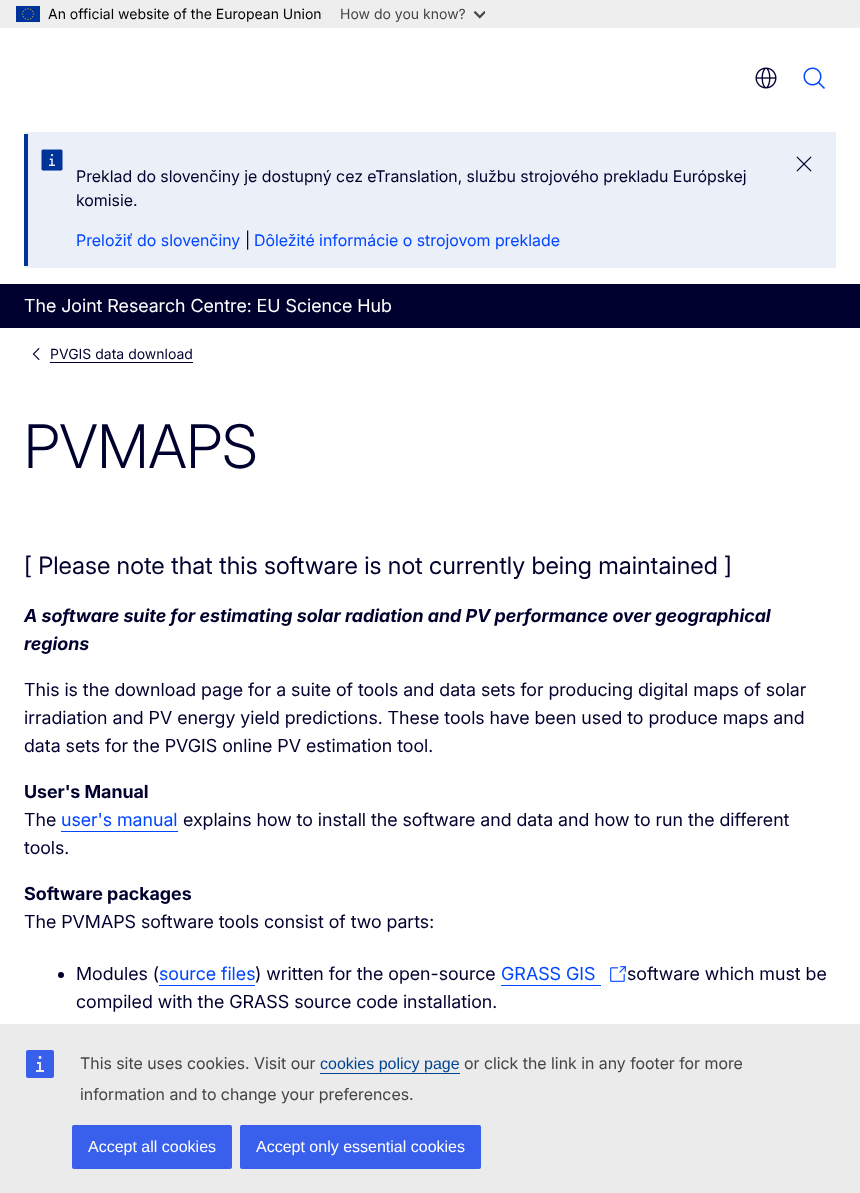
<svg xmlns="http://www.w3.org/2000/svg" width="860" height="1193">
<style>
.a{font:14px Inter;fill:#000}
.b{font:14px Inter;fill:#444}
.c{font:16px 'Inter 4';fill:#00002e}
.d{font:16px 'Inter 4';fill:#0046ff}
.e{font:18px 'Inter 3';fill:#fff}
.f{font:14px Inter;fill:#00002e}
.g{font:300 60px Inter;fill:#00002e}
.h{font:24px 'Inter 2';fill:#00002e}
.i{font:italic bold 18px Inter;fill:#00002e}
.j{font:18px 'Inter 3';fill:#00002e}
.k{font:bold 18px Inter;fill:#00002e}
.l{font:18px 'Inter 3';fill:#0046ff}
.m{font:16px 'Inter 4';fill:#444}
.n{font:16px Liberation Sans;fill:#004494}
.o{font:16px Liberation Sans;fill:#fff}
</style>
<rect width="100%" height="100%" fill="#fff"/>
<path fill="#eee" d="M0 0h860v28H0z"/>
<image href="1.png" x="16" y="6" width="24" height="16"/>
<image href="2.png" x="473" y="11" width="12" height="8"/>
<image href="3.png" x="755" y="67" width="22" height="22"/>
<image href="4.png" x="803" y="67" width="22" height="22"/>
<path fill="#ebeff7" d="M28 132h808v136h-808c-2 0-4-2-4-4v-128c0-2 2-4 4-4z"/>
<path fill="#039" d="M24 134h4v132H24z"/>
<image href="5.png" x="41" y="149" width="22" height="22"/>
<image href="6.png" x="796" y="156" width="16" height="16"/>
<path fill="#00002e" d="M0 284h860v44H0z"/>
<image href="7.png" x="32" y="348" width="8" height="12"/>
<path fill="#00002e" d="M50 362h143v1H50z"/>
<path fill="#0046ff" d="M61 831h117v1H61z"/>
<circle fill="#00002e" cx="61" cy="975" r="3"/>
<path fill="#0046ff" d="M159 985h96v1H159z"/>
<path fill="#0046ff" d="M501 985h100v1H501z"/>
<image href="8.png" x="610" y="966" width="16" height="16"/>
<path fill="#ebebeb" d="M0 1024h860v169H0z"/>
<image href="9.png" x="26" y="1050" width="28" height="28"/>
<path fill="#004494" d="M320 1073h140v1H320z"/>
<rect fill="#3860ed" x="72" y="1125" width="160" height="44" rx="2"/>
<rect fill="#3860ed" x="240" y="1125" width="241" height="44" rx="2"/>
<text class="a" x="48" y="19">An official website of the European Union</text>
<text class="b" x="340" y="19">How do you know?</text>
<text class="c" x="76" y="182">Preklad do slovenčiny je dostupný cez eTranslation, službu strojového prekladu Európskej</text>
<text class="c" x="76" y="206">komisie.</text>
<text class="d" x="76" y="246">Preložiť do slovenčiny</text>
<text class="c" x="245" y="246">|</text>
<text class="d" x="254" y="246">Dôležité informácie o strojovom preklade</text>
<text class="e" x="24" y="312">The Joint Research Centre: EU Science Hub</text>
<text class="f" x="50" y="359">PVGIS data download</text>
<text class="g" x="24" y="468">PVMAPS</text>
<text class="h" x="24" y="574">[ Please note that this software is not currently being maintained ]</text>
<text class="i" x="24" y="622">A software suite for estimating solar radiation and PV performance over geographical</text>
<text class="i" x="24" y="650">regions</text>
<text class="j" x="24" y="696">This is the download page for a suite of tools and data sets for producing digital maps of solar</text>
<text class="j" x="24" y="724">irradiation and PV energy yield predictions. These tools have been used to produce maps and</text>
<text class="j" x="24" y="752">data sets for the PVGIS online PV estimation tool.</text>
<text class="k" x="24" y="798">User's Manual</text>
<text class="j" x="24" y="826">The</text>
<text class="l" x="61" y="826">user's manual</text>
<text class="j" x="183" y="826">explains how to install the software and data and how to run the different</text>
<text class="j" x="24" y="854">tools.</text>
<text class="k" x="24" y="900">Software packages</text>
<text class="j" x="24" y="928">The PVMAPS software tools consist of two parts:</text>
<text class="j" x="76" y="980">Modules (</text>
<text class="l" x="159" y="980">source files</text>
<text class="j" x="255" y="980">) written for the open-source</text>
<text class="l" x="501" y="980">GRASS GIS</text>
<text class="j" x="627" y="980">software which must be</text>
<text class="j" x="76" y="1008">compiled with the GRASS source code installation.</text>
<text class="m" x="80" y="1069">This site uses cookies. Visit our</text>
<text class="n" x="320" y="1069">cookies policy page</text>
<text class="m" x="464" y="1069">or click the link in any footer for more</text>
<text class="m" x="80" y="1100">information and to change your preferences.</text>
<text class="o" x="88" y="1152">Accept all cookies</text>
<text class="o" x="256" y="1152">Accept only essential cookies</text>
</svg>
